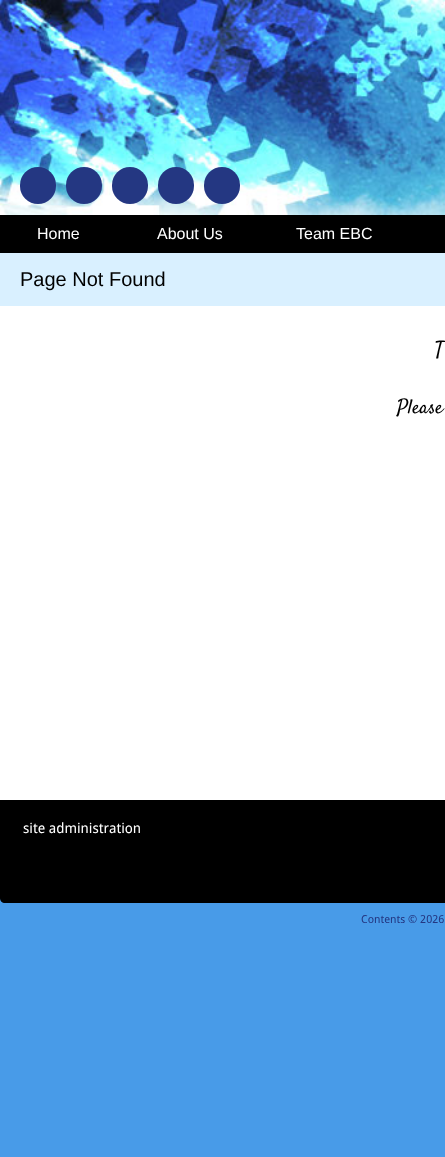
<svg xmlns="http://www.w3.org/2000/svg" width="445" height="1157">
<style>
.a{font:16px Liberation Sans;fill:#fff}
.b{font:20px Liberation Sans;fill:#000}
.c{font:20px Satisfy;fill:#000}
.d{font:14px Droid Sans;fill:#fff}
.e{font:11px Droid Sans;fill:#243782}
</style>
<rect width="100%" height="100%" fill="#489be8"/>
<image href="1.png" x="0" y="0" width="445" height="215"/>
<rect fill="#243782" x="20" y="167" width="36" height="37" rx="18"/>
<rect fill="#243782" x="66" y="167" width="36" height="37" rx="18"/>
<rect fill="#243782" x="112" y="167" width="36" height="37" rx="18"/>
<rect fill="#243782" x="158" y="167" width="36" height="37" rx="18"/>
<rect fill="#243782" x="204" y="167" width="36" height="37" rx="18"/>
<path fill="#000" d="M0 215h445v38H0z"/>
<path fill="#fff" d="M0 306h445v494H0z"/>
<path fill="#d9f0ff" d="M0 253h445v53H0z"/>
<path fill="#000" d="M0 800h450v98c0 3-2 5-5 5h-440c-3 0-5-2-5-5z"/>
<text class="a" x="37" y="239">Home</text>
<text class="a" x="157" y="239">About Us</text>
<text class="a" x="296" y="239">Team EBC</text>
<text class="b" x="20" y="286">Page Not Found</text>
<text class="c" x="435" y="355">T</text>
<text class="c" x="397" y="413">Please</text>
<text class="d" x="23" y="833">site administration</text>
<text class="e" x="361" y="923">Contents © 2026</text>
</svg>
